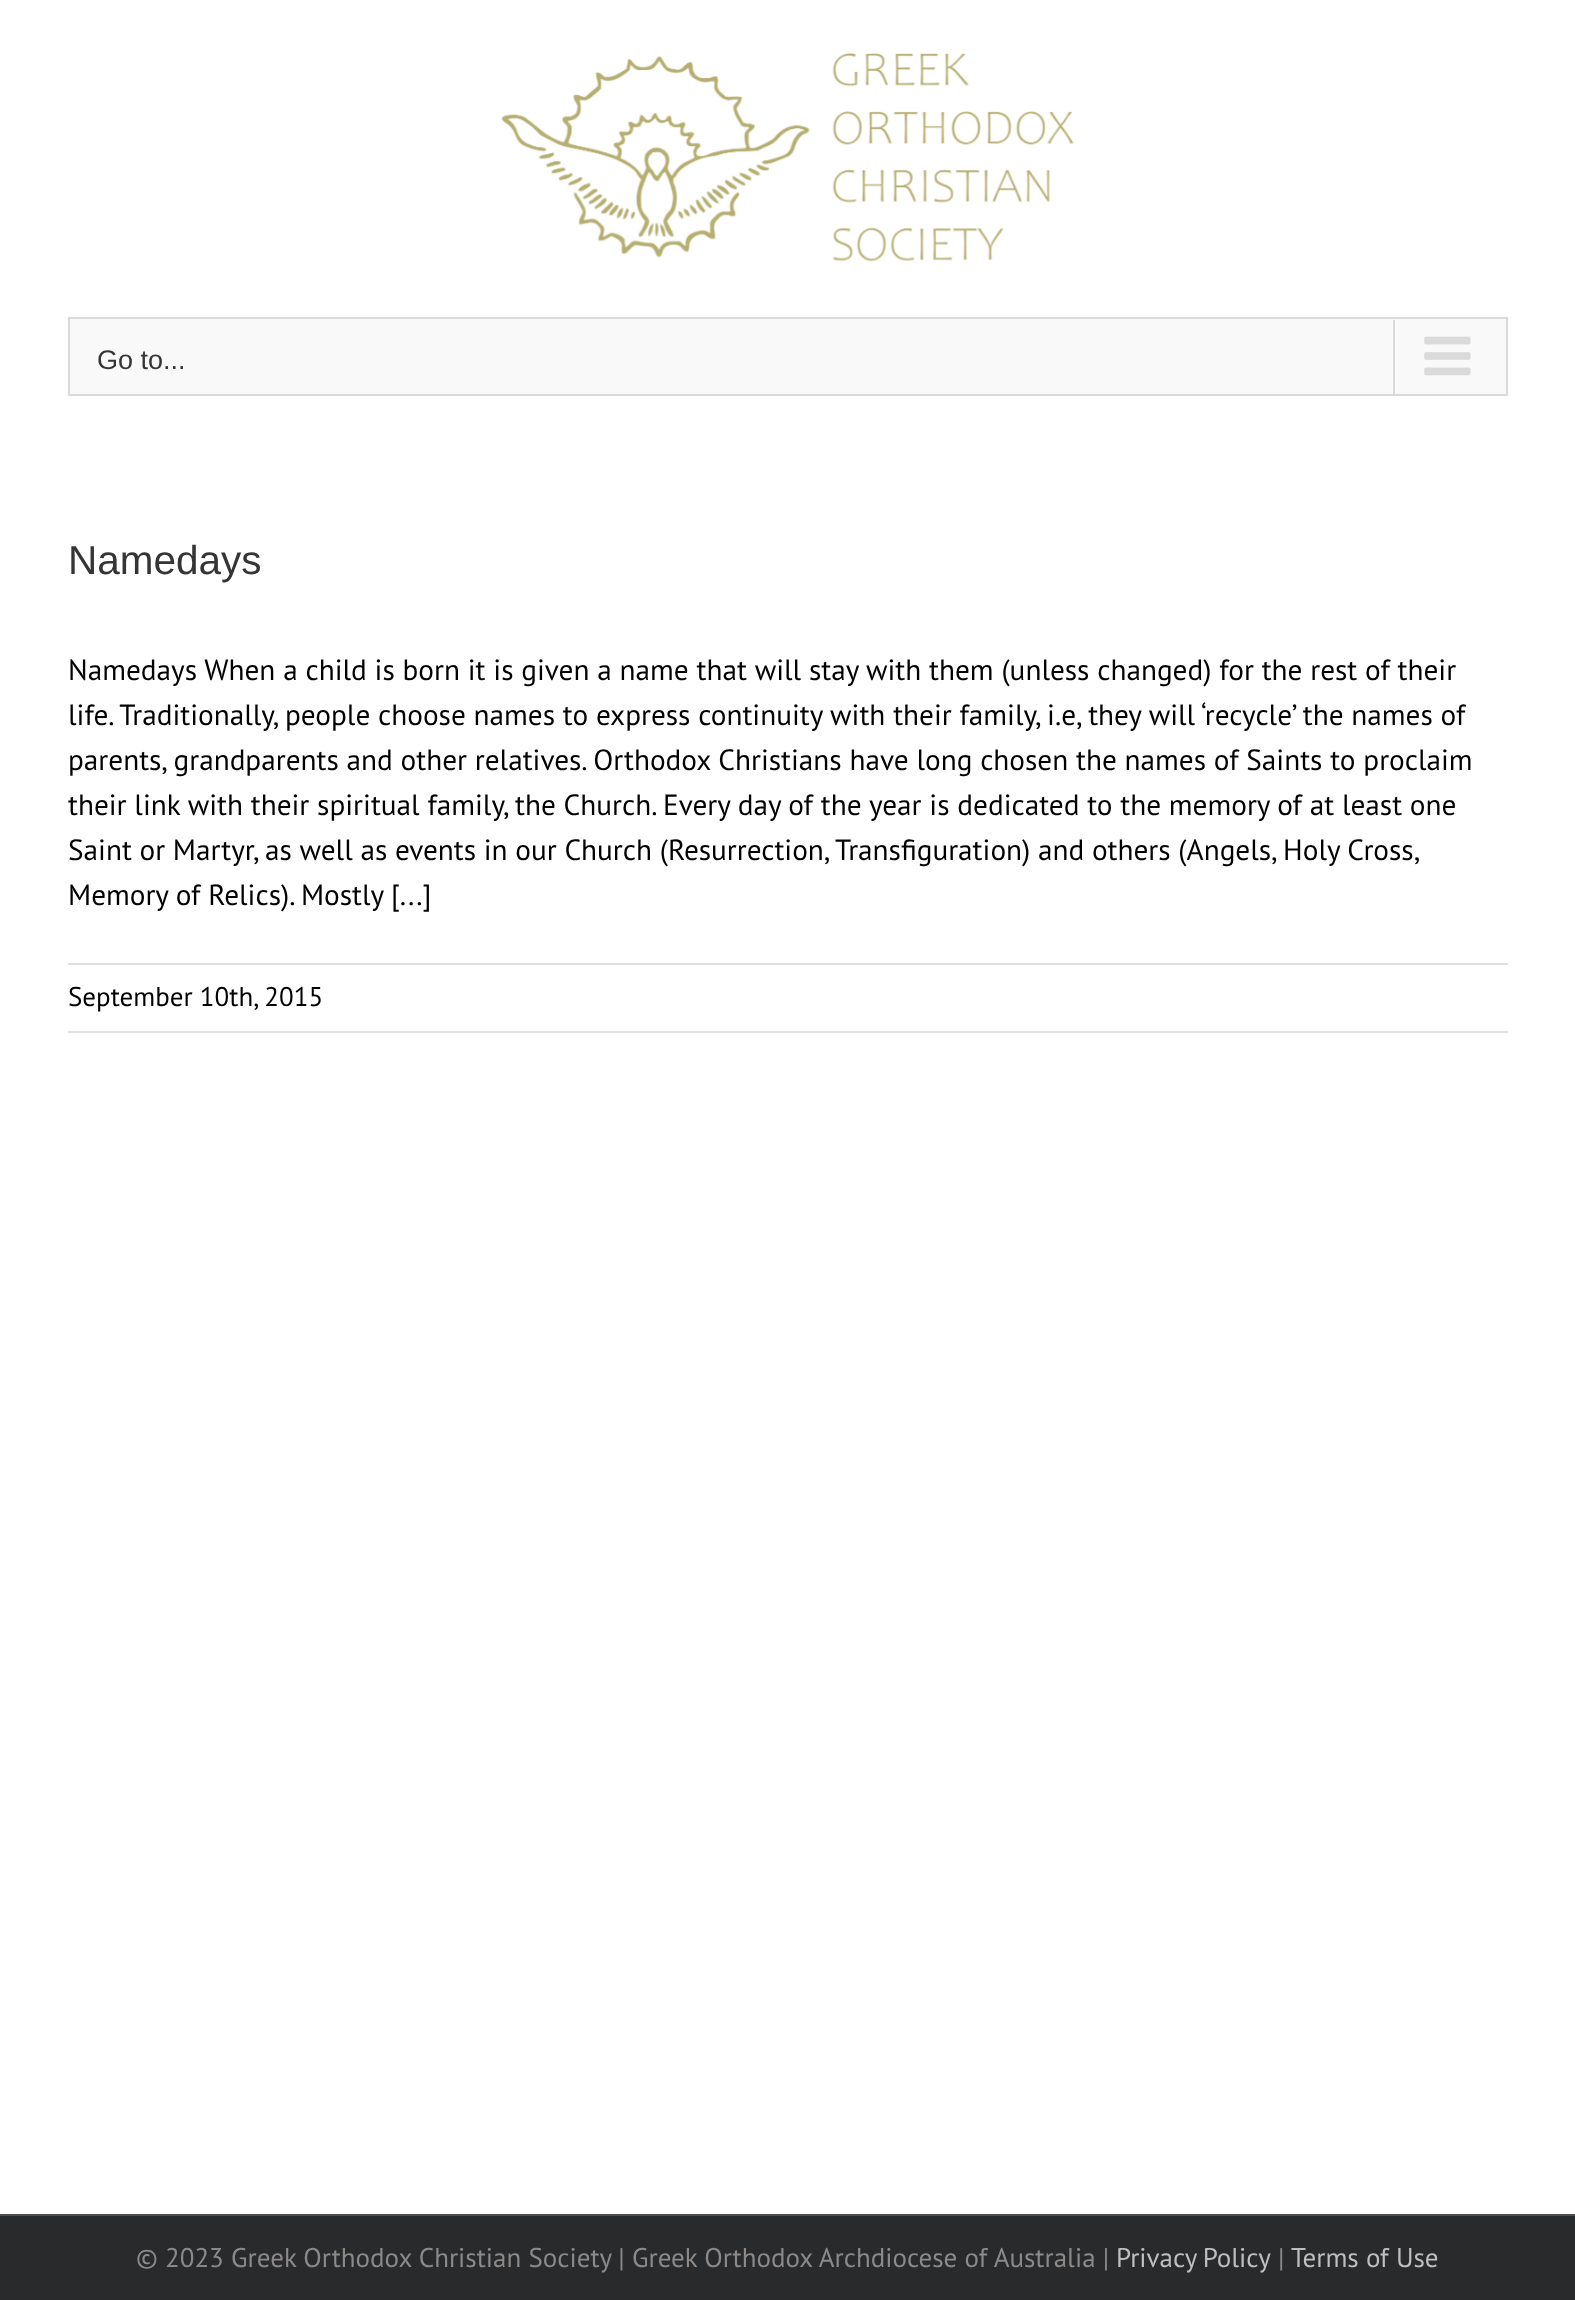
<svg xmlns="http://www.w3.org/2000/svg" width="1575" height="2300">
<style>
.a{font:27px Liberation Sans;fill:#353535}
.b{font:40.5px Liberation Sans;fill:#353535}
.c{font:29.25px PT Sans;fill:#000}
.d{font:27px PT Sans;fill:#000}
.e{font:27px PT Sans;fill:#8c8989}
.f{font:27px PT Sans;fill:#bfbfbf}
</style>
<rect width="100%" height="100%" fill="#fff"/>
<image href="1.png" x="501" y="53" width="573" height="209"/>
<path fill="#f9f9f9" stroke="#dadada" stroke-width="2" d="M69 318h1438v77H69z"/>
<path fill="#dadada" d="M1393 320h2v74H1393z"/>
<image href="2.png" x="1424" y="336" width="47" height="40"/>
<path fill="#e0dede" d="M68 963h1440v2H68z"/>
<path fill="#e0dede" d="M68 1031h1440v2H68z"/>
<path fill="#282a2b" d="M0 2216h1575v84H0z"/>
<path fill="#4b4c4d" d="M0 2214h1575v2H0z"/>
<text class="a" x="97" y="369">Go to...</text>
<text class="b" x="68" y="574">Namedays</text>
<text class="c" x="68" y="680">Namedays When a child is born it is given a name that will stay with them (unless changed) for the rest of their</text>
<text class="c" x="68" y="725">life. Traditionally, people choose names to express continuity with their family, i.e, they will ‘recycle’ the names of</text>
<text class="c" x="68" y="770">parents, grandparents and other relatives. Orthodox Christians have long chosen the names of Saints to proclaim</text>
<text class="c" x="68" y="815">their link with their spiritual family, the Church. Every day of the year is dedicated to the memory of at least one</text>
<text class="c" x="68" y="860" word-spacing="-0.1">Saint or Martyr, as well as events in our Church (Resurrection, Transfiguration) and others (Angels, Holy Cross,</text>
<text class="c" x="68" y="905">Memory of Relics). Mostly [...]</text>
<text class="d" x="68" y="1006">September 10th, 2015</text>
<text class="e" x="136" y="2267">© 2023 Greek Orthodox Christian Society | Greek Orthodox Archdiocese of Australia |</text>
<text class="f" x="1116" y="2267" word-spacing="-1">Privacy Policy</text>
<text class="e" x="1278" y="2267">|</text>
<text class="f" x="1291" y="2267">Terms of Use</text>
</svg>
